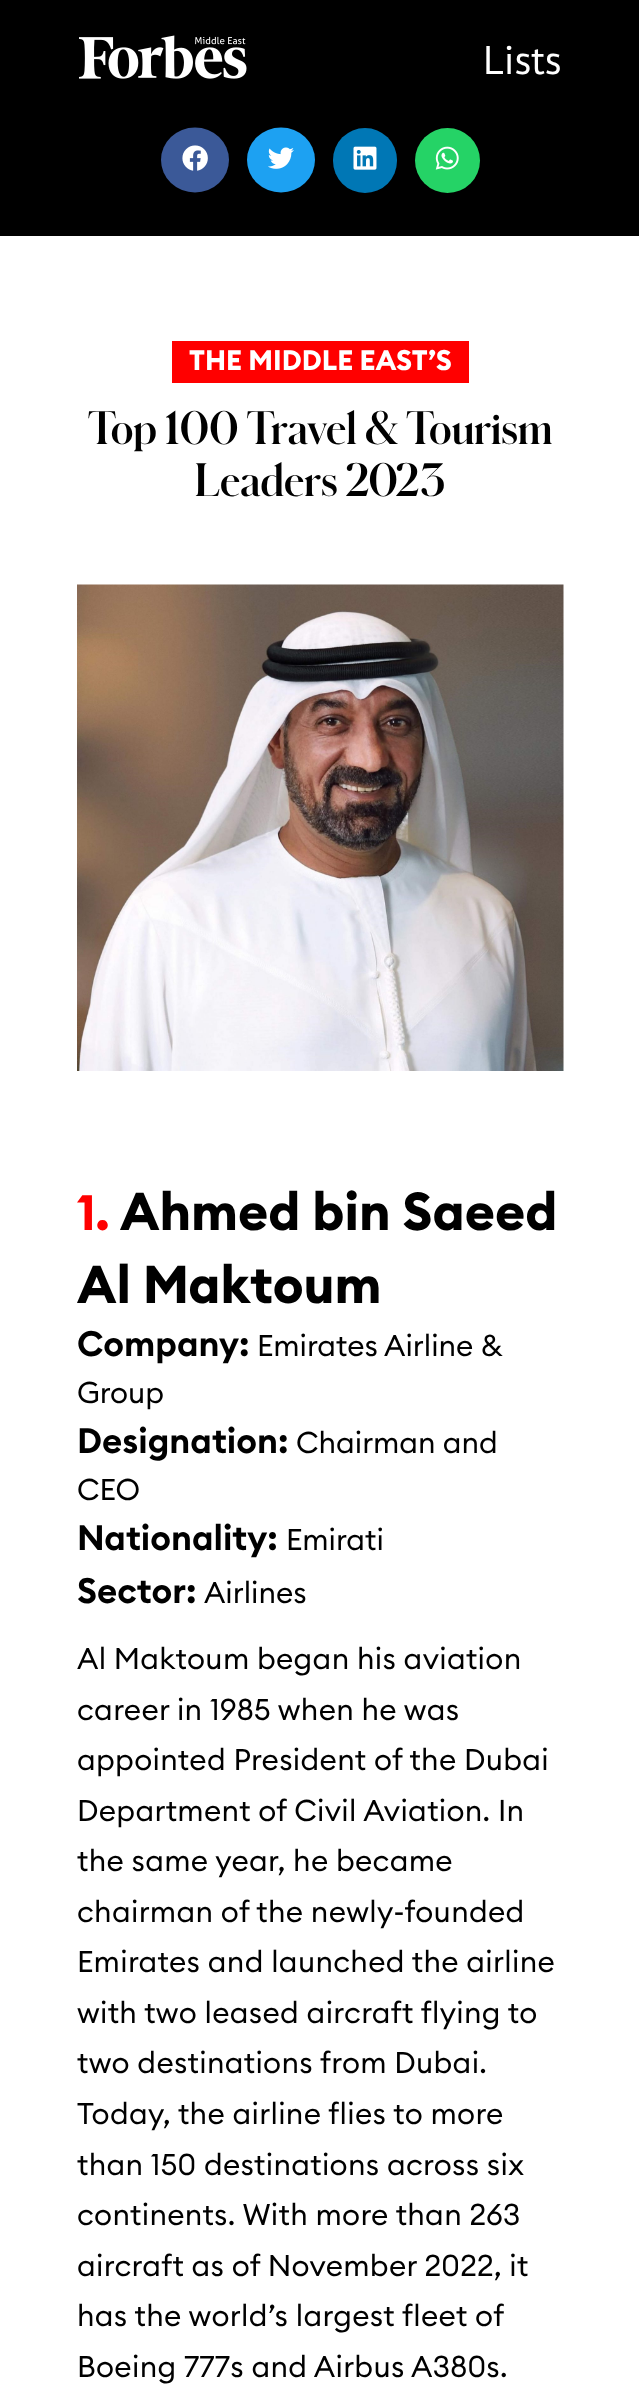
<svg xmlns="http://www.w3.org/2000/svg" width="639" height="2406">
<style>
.a{font:40px PT Sans;fill:#fff}
.b{font:bold 28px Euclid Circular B;fill:#fff}
.c{font:bold 43.75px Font;fill:#000}
.d{font:bold 49px Euclid Circular B;fill:#f00}
.e{font:bold 52.5px Euclid Circular B;fill:#000}
.f{font:600 35px Euclid Circular B;fill:#000}
.g{font:29.75px Euclid Circular B;fill:#000}
.h{font:29.75px Euclid Circular B;letter-spacing:0.3px;fill:#000}
</style>
<rect width="100%" height="100%" fill="#fff"/>
<path fill="#000" d="M0 0h639v236H0z"/>
<image href="1.png" x="79" y="35" width="168" height="44"/>
<ellipse fill="#3b5998" cx="195" cy="160" rx="34" ry="32.5"/>
<image href="2.png" x="182" y="145" width="26" height="26"/>
<ellipse fill="#1da1f2" cx="281" cy="160" rx="34" ry="32.5"/>
<image href="3.png" x="268" y="147" width="26" height="22"/>
<rect fill="#0077b5" x="333" y="128" width="64" height="65" rx="32"/>
<image href="4.png" x="353" y="146" width="24" height="24"/>
<circle fill="#25d366" cx="447.5" cy="160.5" r="32.5"/>
<image href="5.png" x="435" y="146" width="24" height="24"/>
<path fill="#f00" d="M172 341h297v42H172z"/>
<image href="6.png" x="77" y="584" width="487" height="487"/>
<text class="a" x="483" y="74">Lists</text>
<text class="b" x="189" y="370">THE MIDDLE EAST’S</text>
<text class="c" x="88" y="444">Top 100 Travel &amp; Tourism</text>
<text class="c" x="195" y="496">Leaders 2023</text>
<text class="d" x="77" y="1230">1.</text>
<text class="e" x="120" y="1230">Ahmed bin Saeed</text>
<text class="e" x="77" y="1303">Al Maktoum</text>
<text class="f" x="77" y="1356">Company:</text>
<text class="g" x="257" y="1356">Emirates Airline &amp;</text>
<text class="g" x="77" y="1403">Group</text>
<text class="f" x="77" y="1453">Designation:</text>
<text class="g" x="296" y="1453">Chairman and</text>
<text class="g" x="77" y="1500">CEO</text>
<text class="f" x="77" y="1550">Nationality:</text>
<text class="g" x="286" y="1550">Emirati</text>
<text class="f" x="77" y="1603">Sector:</text>
<text class="g" x="204" y="1603">Airlines</text>
<text class="h" x="77" y="1669">Al Maktoum began his aviation</text>
<text class="h" x="77" y="1720">career in 1985 when he was</text>
<text class="h" x="77" y="1770">appointed President of the Dubai</text>
<text class="h" x="77" y="1821">Department of Civil Aviation. In</text>
<text class="h" x="77" y="1871">the same year, he became</text>
<text class="h" x="77" y="1922">chairman of the newly-founded</text>
<text class="h" x="77" y="1972">Emirates and launched the airline</text>
<text class="h" x="77" y="2023">with two leased aircraft flying to</text>
<text class="h" x="77" y="2073">two destinations from Dubai.</text>
<text class="h" x="77" y="2124">Today, the airline flies to more</text>
<text class="h" x="77" y="2175">than 150 destinations across six</text>
<text class="h" x="77" y="2225">continents. With more than 263</text>
<text class="h" x="77" y="2276">aircraft as of November 2022, it</text>
<text class="h" x="77" y="2326">has the world’s largest fleet of</text>
<text class="h" x="77" y="2377">Boeing 777s and Airbus A380s.</text>
</svg>
